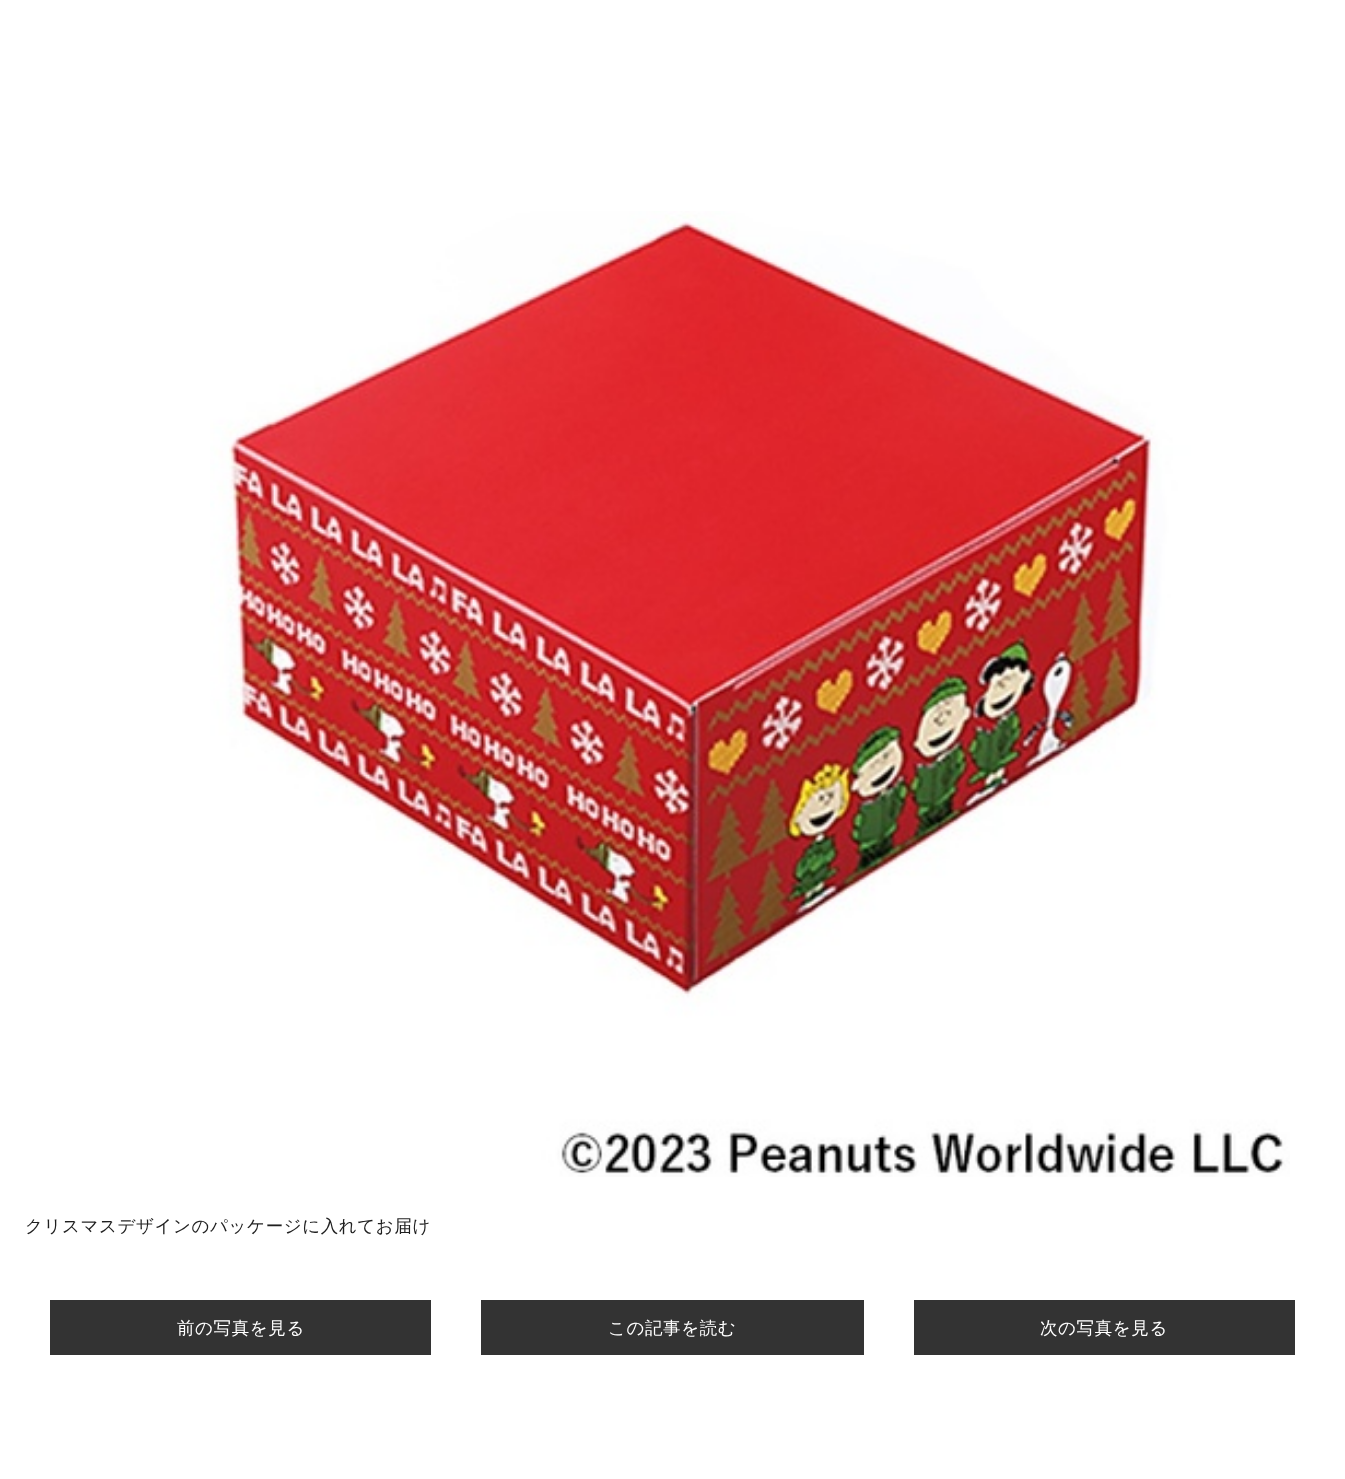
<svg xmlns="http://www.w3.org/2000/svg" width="1345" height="1479">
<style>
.a{font:500 17.5px WenQuanYi Zen Hei;letter-spacing:0.6px;fill:#1f1f1f}
.b{font:500 17.5px WenQuanYi Zen Hei;letter-spacing:0.6px;fill:#fff}
</style>
<rect width="100%" height="100%" fill="#fff"/>
<image href="1.png" x="210" y="211" width="1080" height="966"/>
<path fill="#333" d="M50 1300h381v55H50z"/>
<path fill="#333" d="M481 1300h383v55H481z"/>
<path fill="#333" d="M914 1300h381v55H914z"/>
<text class="a" x="25" y="1232">クリスマスデザインのパッケージに入れてお届け</text>
<text class="b" x="177" y="1334">前の写真を見る</text>
<text class="b" x="608" y="1334">この記事を読む</text>
<text class="b" x="1040" y="1334">次の写真を見る</text>
</svg>
